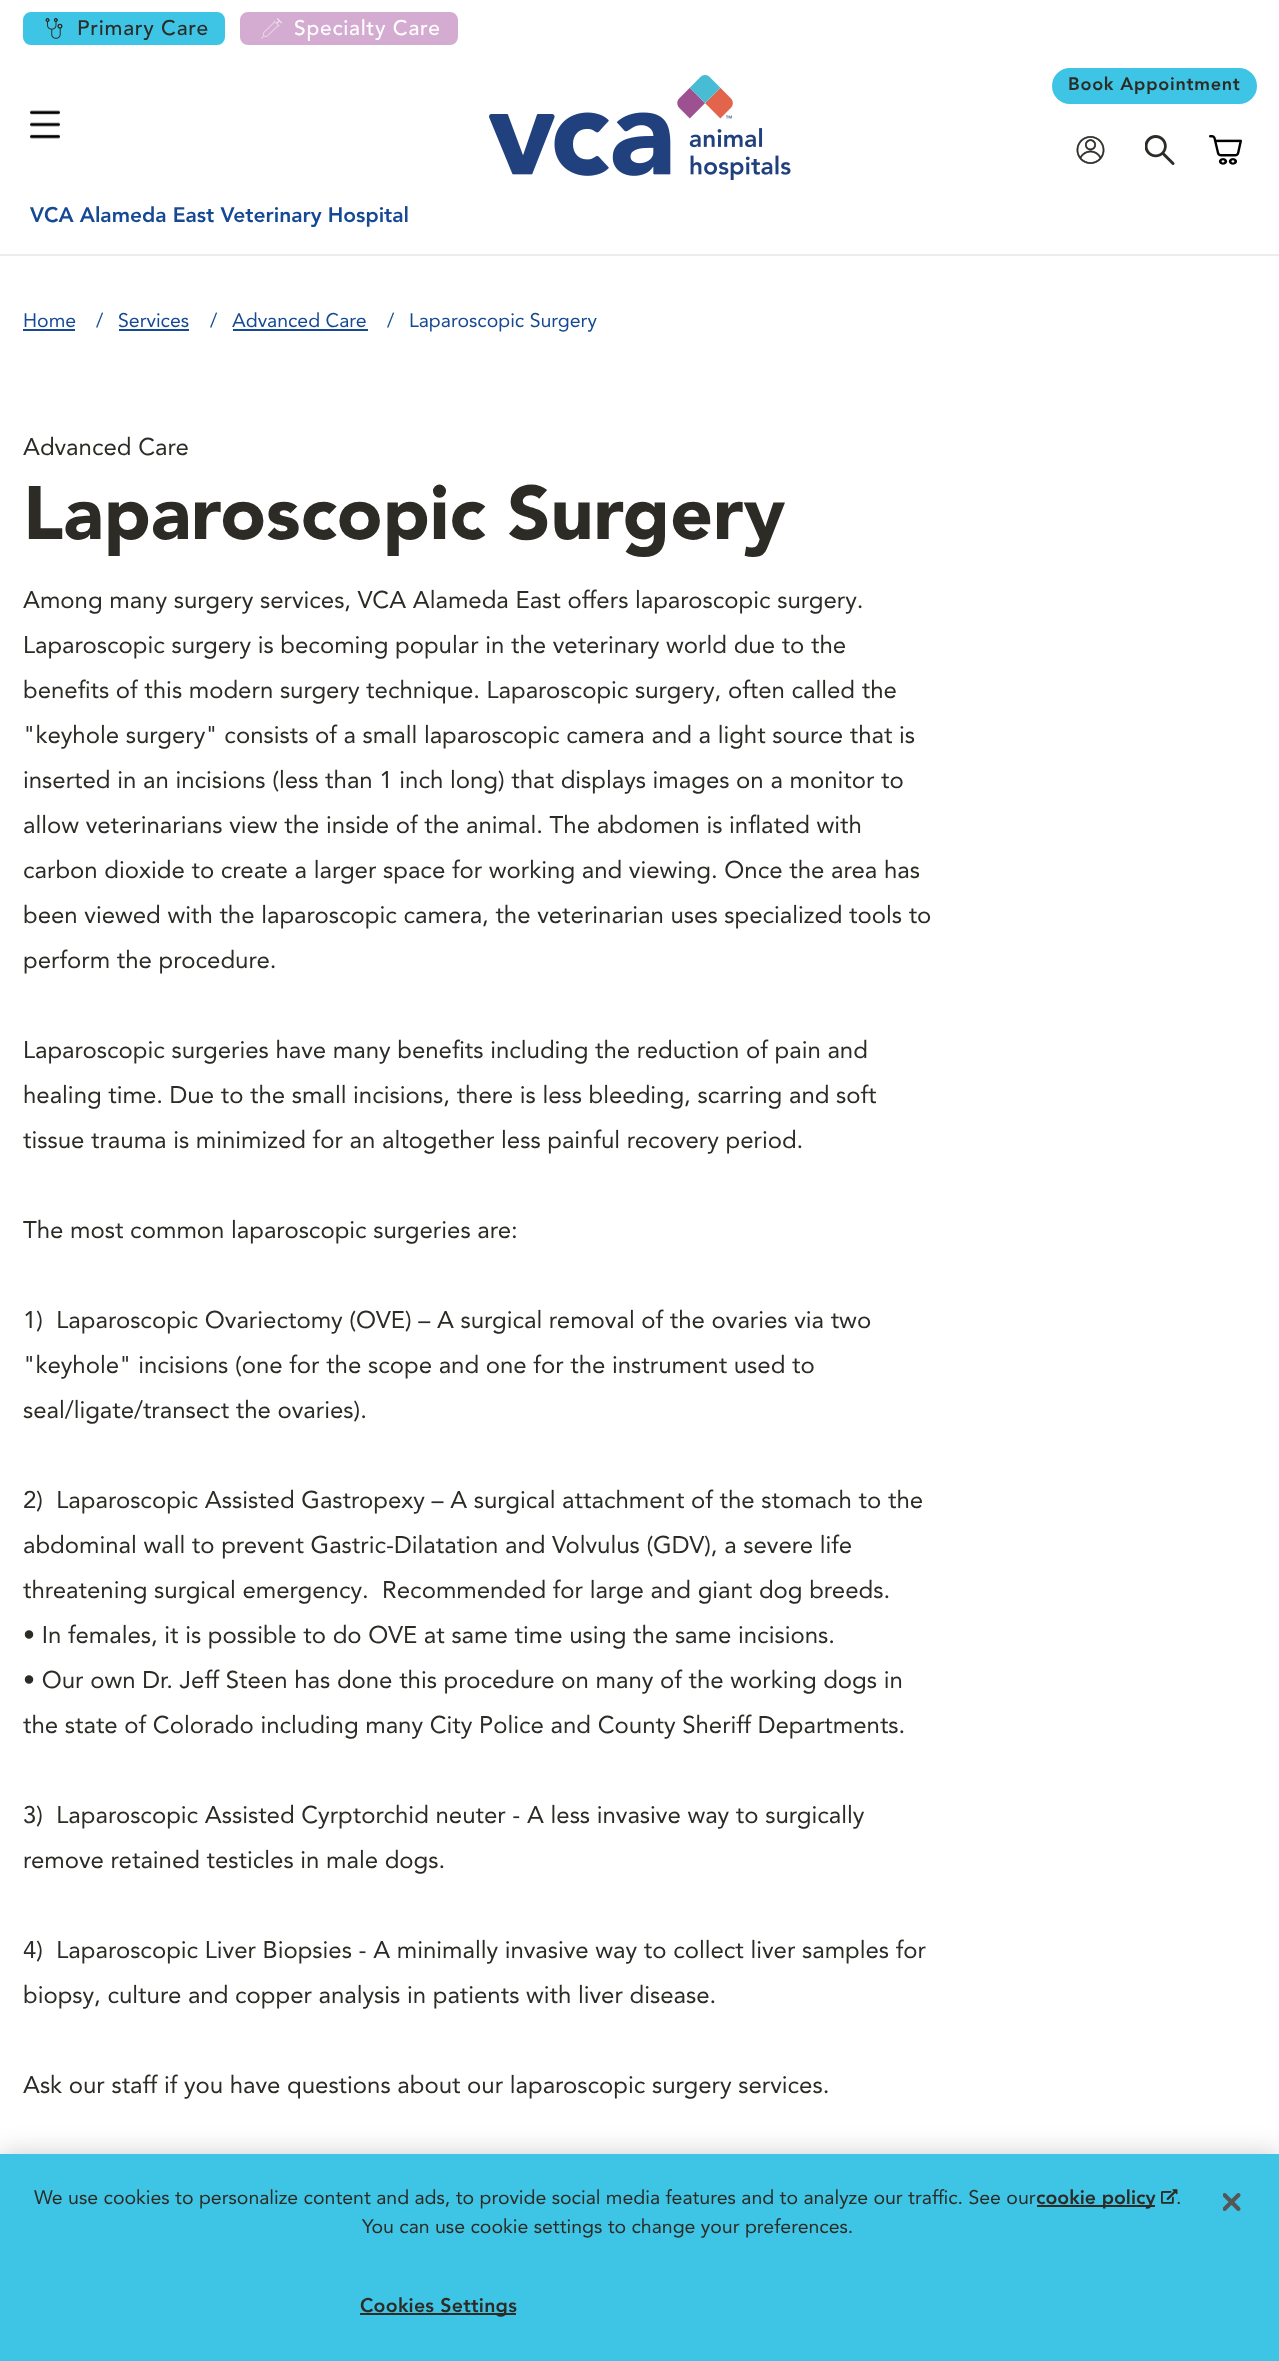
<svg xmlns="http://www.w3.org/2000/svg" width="1279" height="2361">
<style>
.a{font:500 21px Avenir;letter-spacing:0.75px;fill:#2d2b26}
.b{font:500 21px Avenir;letter-spacing:0.75px;fill:#fff}
.c{font:900 18px 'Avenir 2';letter-spacing:0.75px;fill:#2d2b26}
.d{font:900 21px 'Avenir 2';fill:#164994}
.e{font:19.5px Avenir;fill:#164994}
.f{font:24px Avenir;fill:#2d2b26}
.g{font:900 75px Avenir;fill:#2d2b26}
.h{font:19.5px Avenir;fill:#2d2b26}
.i{font:900 19.5px 'Avenir 2';fill:#2d2b26}
.j{font:900 19.5px 'Avenir 2';letter-spacing:0.25px;fill:#2d2b26}
</style>
<rect width="100%" height="100%" fill="#fff"/>
<path fill="#ededed" d="M0 254h1279v2H0z"/>
<rect fill="#3ec4e4" stroke="#3ec4e4" stroke-width="2" x="24" y="13" width="200" height="31" rx="7"/>
<image href="1.png" x="45" y="18" width="18" height="21"/>
<rect fill="#d5acd1" stroke="#d5acd1" stroke-width="2" x="241" y="13" width="216" height="31" rx="7"/>
<image href="2.png" x="261" y="18" width="21" height="21"/>
<image href="3.png" x="489" y="75" width="302" height="105"/>
<rect fill="#3ec4e4" stroke="#3ec4e4" stroke-width="2" x="1053" y="69" width="203" height="34" rx="17"/>
<image href="4.png" x="1076" y="136" width="29" height="28"/>
<image href="5.png" x="1145" y="135" width="30" height="30"/>
<image href="6.png" x="1209" y="135" width="33" height="30"/>
<image href="7.png" x="30" y="110" width="30" height="29"/>
<path fill="#164994" d="M23 329h52v2H23z"/>
<path fill="#164994" d="M119 329h70v2H119z"/>
<path fill="#164994" d="M233 329h135v2H233z"/>
<path fill="#00000033" filter="blur(13.5px)" d="M0 2154h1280v207H0z"/>
<path fill="#3ec4e4" d="M0 2154h1279v207H0z"/>
<path fill="#2d2b26" d="M1037 2205h118v2H1037z"/>
<image href="8.png" x="1161" y="2189" width="17" height="15"/>
<path fill="#2d2b26" d="M360 2313h156v2H360z"/>
<image href="9.png" x="1223" y="2193" width="18" height="18"/>
<text class="a" x="77" y="35">Primary Care</text>
<text class="b" x="294" y="35">Specialty Care</text>
<text class="c" x="1068" y="90">Book Appointment</text>
<text class="d" x="30" y="222">VCA Alameda East Veterinary Hospital</text>
<text class="e" x="23" y="327">Home</text>
<text class="e" x="96" y="327">/</text>
<text class="e" x="118" y="327">Services</text>
<text class="e" x="210" y="327">/</text>
<text class="e" x="232" y="327">Advanced Care</text>
<text class="e" x="387" y="327">/</text>
<text class="e" x="409" y="327">Laparoscopic Surgery</text>
<text class="f" x="23" y="455">Advanced Care</text>
<text class="g" x="23" y="539">Laparoscopic Surgery</text>
<text class="f" x="23" y="608">Among many surgery services, VCA Alameda East offers laparoscopic surgery.</text>
<text class="f" x="23" y="653">Laparoscopic surgery is becoming popular in the veterinary world due to the</text>
<text class="f" x="23" y="698">benefits of this modern surgery technique. Laparoscopic surgery, often called the</text>
<text class="f" x="23" y="743">"keyhole surgery" consists of a small laparoscopic camera and a light source that is</text>
<text class="f" x="23" y="788">inserted in an incisions (less than 1 inch long) that displays images on a monitor to</text>
<text class="f" x="23" y="833">allow veterinarians view the inside of the animal. The abdomen is inflated with</text>
<text class="f" x="23" y="878">carbon dioxide to create a larger space for working and viewing. Once the area has</text>
<text class="f" x="23" y="923">been viewed with the laparoscopic camera, the veterinarian uses specialized tools to</text>
<text class="f" x="23" y="968">perform the procedure.</text>
<text class="f" x="23" y="1058">Laparoscopic surgeries have many benefits including the reduction of pain and</text>
<text class="f" x="23" y="1103">healing time. Due to the small incisions, there is less bleeding, scarring and soft</text>
<text class="f" x="23" y="1148">tissue trauma is minimized for an altogether less painful recovery period.</text>
<text class="f" x="23" y="1238">The most common laparoscopic surgeries are:</text>
<text class="f" xml:space="preserve" x="23" y="1328">1)  Laparoscopic Ovariectomy (OVE) – A surgical removal of the ovaries via two</text>
<text class="f" x="23" y="1373">"keyhole" incisions (one for the scope and one for the instrument used to</text>
<text class="f" x="23" y="1418">seal/ligate/transect the ovaries).</text>
<text class="f" xml:space="preserve" x="23" y="1508">2)  Laparoscopic Assisted Gastropexy – A surgical attachment of the stomach to the</text>
<text class="f" x="23" y="1553">abdominal wall to prevent Gastric-Dilatation and Volvulus (GDV), a severe life</text>
<text class="f" xml:space="preserve" x="23" y="1598">threatening surgical emergency.  Recommended for large and giant dog breeds.</text>
<text class="f" x="23" y="1643">• In females, it is possible to do OVE at same time using the same incisions.</text>
<text class="f" x="23" y="1688">• Our own Dr. Jeff Steen has done this procedure on many of the working dogs in</text>
<text class="f" x="23" y="1733">the state of Colorado including many City Police and County Sheriff Departments.</text>
<text class="f" xml:space="preserve" x="23" y="1823">3)  Laparoscopic Assisted Cyrptorchid neuter - A less invasive way to surgically</text>
<text class="f" x="23" y="1868">remove retained testicles in male dogs.</text>
<text class="f" xml:space="preserve" x="23" y="1958">4)  Laparoscopic Liver Biopsies - A minimally invasive way to collect liver samples for</text>
<text class="f" x="23" y="2003">biopsy, culture and copper analysis in patients with liver disease.</text>
<text class="f" x="23" y="2093">Ask our staff if you have questions about our laparoscopic surgery services.</text>
<text class="h" x="34" y="2204">We use cookies to personalize content and ads, to provide social media features and to analyze our traffic. See our</text>
<text class="i" x="1036" y="2204">cookie policy</text>
<text class="h" x="1176" y="2204">.</text>
<text class="h" x="362" y="2233">You can use cookie settings to change your preferences.</text>
<text class="j" x="360" y="2312">Cookies Settings</text>
</svg>
